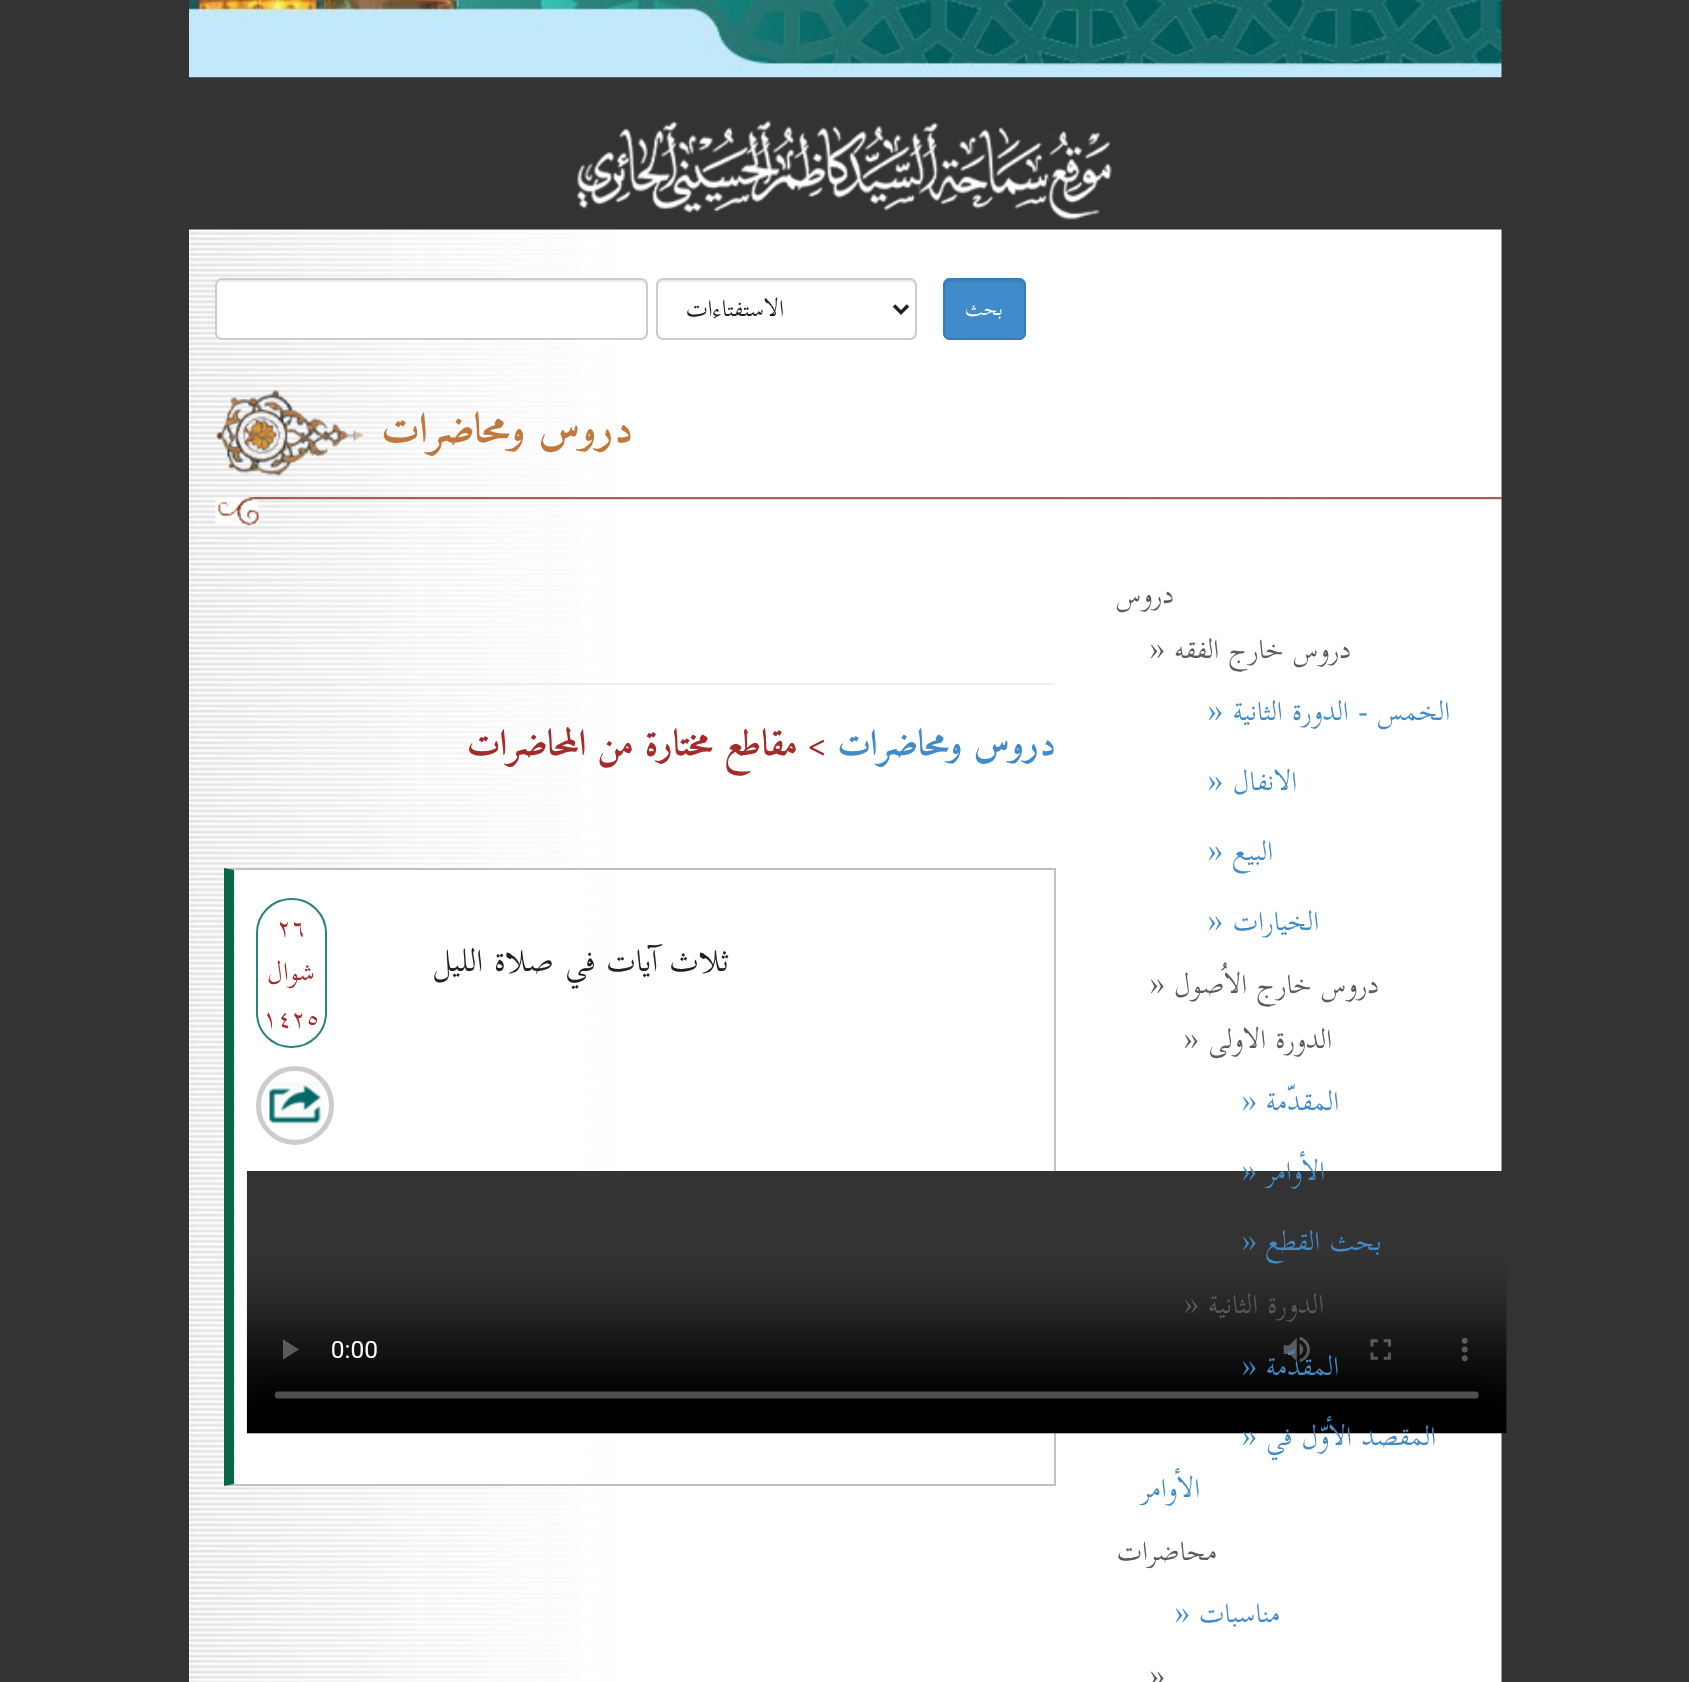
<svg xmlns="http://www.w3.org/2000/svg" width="1689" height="1682">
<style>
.a{font:28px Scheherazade;direction:rtl;fill:#fff}
.b{font:33.5px Scheherazade;direction:rtl;fill:#222}
.c{font:bold 42px Amiri;direction:rtl;fill:#bf793d}
.d{font:38.5px Scheherazade;direction:rtl;fill:#5a5a5a}
.e{font:38.5px Scheherazade;fill:#5a5a5a}
.f{font:38.5px Scheherazade;direction:rtl;fill:#428bca}
.g{font:38.5px Scheherazade;fill:#428bca}
.h{font:bold 36.5px Amiri;direction:rtl;fill:#428bca}
.i{font:bold 36.5px Amiri;direction:rtl;fill:#a52a2a}
.j{font:44.75px Scheherazade;direction:rtl;fill:#222}
.k{font:36.5px Scheherazade;fill:#a52a2a}
.l{font:36.5px Scheherazade;direction:rtl;fill:#a52a2a}
</style>
<rect width="100%" height="100%" fill="#333"/>
<image href="1.png" x="189" y="0" width="1313" height="78"/>
<image href="2.png" x="577" y="120" width="535" height="100"/>
<image href="3.png" x="189" y="229" width="1313" height="1453"/>
<rect fill="#428bca" x="943" y="278" width="83" height="62" rx="7"/>
<path fill="#3d81bb" d="M950 282h68c3 0 6 2 6 5c0-10-8-7-16-7h-46c-9 0-17-3-17 7c0-3 2-5 5-5z"/>
<rect fill="none" stroke="#357ebd" stroke-width="2" x="944" y="279" width="81" height="60" rx="6"/>
<path fill="#ececec" d="M663 282h247c3 0 5 2 5 5v-2c0-3-2-5-5-5h-247c-3 0-5 2-5 5v2c0-3 2-5 5-5z"/>
<rect fill="none" stroke="#ccc" stroke-width="2" x="657" y="279" width="259" height="60" rx="6"/>
<path fill="none" stroke="#222" stroke-width="3.5" d="M894 305.5l7 7l7-7"/>
<rect fill="#fff" x="215" y="278" width="433" height="62" rx="7"/>
<path fill="#ececec" d="M222 282h418c3 0 6 2 6 5c0-3-1-7-5-7h-419c-4 0-5 4-5 7c0-3 2-5 5-5z"/>
<rect fill="none" stroke="#ccc" stroke-width="2" x="216" y="279" width="431" height="60" rx="6"/>
<image href="4.png" x="216" y="390" width="149" height="87"/>
<image href="5.png" x="215" y="497" width="1287" height="29"/>
<path fill="#eee" d="M224 683h831v2H224z"/>
<path fill="#fff" d="M235 870h346v614H235z"/>
<path fill="#c1c1c1" d="M224 868h831l-1 2h-820z"/>
<path fill="#c1c1c1" d="M1054 868h2v618H1054z"/>
<path fill="#c1c1c1" d="M1055 1486h-831l10-2h820z"/>
<path fill="#086746" d="M224 1486v-618l10 2v614z"/>
<rect fill="none" stroke="#29827c" stroke-width="2" x="257" y="899" width="69" height="148" rx="34"/>
<image href="6.png" x="269" y="1081" width="52" height="47"/>
<rect fill="none" stroke="#ccc" stroke-width="5" x="258.5" y="1068.5" width="73" height="74" rx="36.5"/>
<image href="7.png" x="246" y="1171" width="1261" height="263"/>
<text class="a" x="1003" y="315">بحث</text>
<text class="b" x="784" y="316">الاستفتاءات</text>
<text class="c" x="632" y="442">دروس ومحاضرات</text>
<text class="d" x="1174" y="603">دروس</text>
<text class="d" x="1351" y="658">دروس خارج الفقه</text>
<text class="e" x="1150" y="658">»</text>
<text class="f" x="1450" y="720">الخمس - الدورة الثانية</text>
<text class="g" x="1208" y="720">»</text>
<text class="f" x="1297" y="790">الانفال</text>
<text class="g" x="1208" y="790">»</text>
<text class="f" x="1273" y="860">البيع</text>
<text class="g" x="1208" y="860">»</text>
<text class="f" x="1319" y="930">الخيارات</text>
<text class="g" x="1208" y="930">»</text>
<text class="d" x="1379" y="993">دروس خارج الاُصول</text>
<text class="e" x="1150" y="993">»</text>
<text class="d" x="1332" y="1048">الدورة الاولى</text>
<text class="e" x="1184" y="1048">»</text>
<text class="f" x="1339" y="1110">المقدّمة</text>
<text class="g" x="1242" y="1110">»</text>
<text class="f" x="1325" y="1180">الأوامر</text>
<text class="g" x="1242" y="1180">»</text>
<text class="f" x="1382" y="1250">بحث القطع</text>
<text class="g" x="1242" y="1250">»</text>
<text class="d" x="1324" y="1313">الدورة الثانية</text>
<text class="e" x="1184" y="1313">»</text>
<text class="f" x="1339" y="1375">المقدّمة</text>
<text class="g" x="1242" y="1375">»</text>
<text class="f" x="1436" y="1445">المقصد الأوّل في</text>
<text class="g" x="1242" y="1445">»</text>
<text class="f" x="1200" y="1497">الأوامر</text>
<text class="d" x="1217" y="1560">محاضرات</text>
<text class="f" x="1280" y="1622">مناسبات</text>
<text class="g" x="1175" y="1622">»</text>
<text class="e" x="1150" y="1685">»</text>
<text class="h" x="1055" y="755">دروس ومحاضرات</text>
<text class="i" x="826" y="755">&gt; مقاطع مختارة من المحاضرات</text>
<text class="j" x="729" y="971">ثلاث آيات في صلاة الليل</text>
<text class="k" x="277" y="935">۲٦</text>
<text class="l" x="315" y="980">شوال</text>
<text class="k" x="263" y="1026">۱٤۲٥</text>
</svg>
